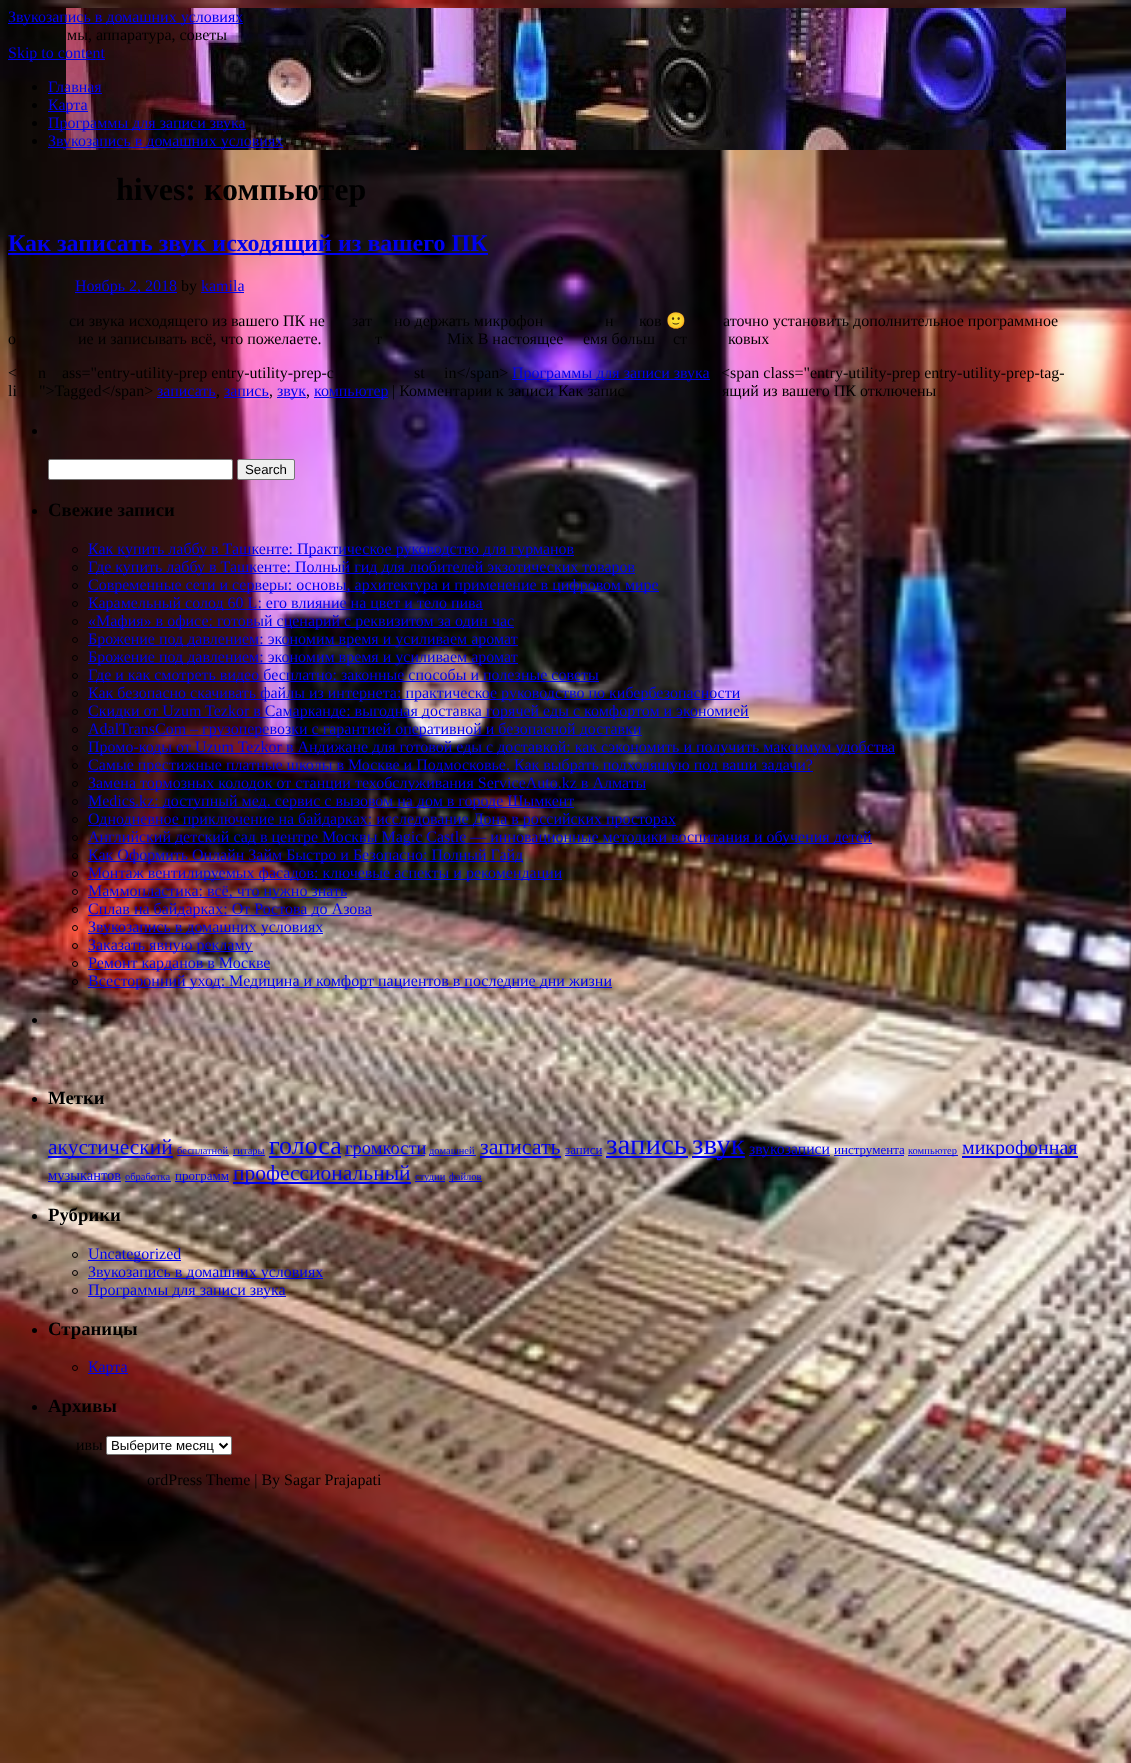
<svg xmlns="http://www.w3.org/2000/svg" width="1131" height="1763">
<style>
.a{font:16px Liberation Serif;fill:#00e}
.b{font:16px Liberation Serif;fill:#000}
.c{font:bold 32px Liberation Serif;fill:#000}
.d{font:bold 24px Liberation Serif;fill:#00e}
.e{font:16px Noto Color Emoji;fill:#000}
.f{font:13.25px Liberation Sans;fill:#000}
.g{font:bold 18.75px Liberation Serif;fill:#000}
.h{font:21.5px Liberation Serif;fill:#00e}
.i{font:10.5px Liberation Serif;fill:#00e}
.j{font:26px Liberation Serif;fill:#00e}
.k{font:18.5px Liberation Serif;fill:#00e}
.l{font:22px Liberation Serif;fill:#00e}
.m{font:13px Liberation Serif;fill:#00e}
.n{font:29px Liberation Serif;fill:#00e}
.o{font:15.75px Liberation Serif;fill:#00e}
.p{font:20px Liberation Serif;fill:#00e}
.q{font:14.5px Liberation Serif;fill:#00e}
</style>
<rect width="100%" height="100%" fill="#fff"/>
<image href="1.png" x="0" y="0" width="1131" height="1763"/>
<image href="2.png" x="66" y="8" width="1000" height="142"/>
<path fill="#00e" d="M8 23h235v1H8z"/>
<path fill="#00e" d="M8 59h97v1H8z"/>
<circle fill="#000" cx="34.5" cy="87.5" r="2.5"/>
<path fill="#00e" d="M48 93h54v1H48z"/>
<circle fill="#000" cx="34.5" cy="105.5" r="2.5"/>
<path fill="#00e" d="M48 111h40v1H48z"/>
<circle fill="#000" cx="34.5" cy="123.5" r="2.5"/>
<path fill="#00e" d="M48 129h198v1H48z"/>
<circle fill="#000" cx="34.5" cy="141.5" r="2.5"/>
<path fill="#00e" d="M48 147h235v1H48z"/>
<path fill="#00e" d="M8 253h480v2H8z"/>
<path fill="#00e" d="M75 292h102v1H75z"/>
<path fill="#00e" d="M201 292h43v1H201z"/>
<path fill="#00e" d="M512 379h198v1H512z"/>
<path fill="#00e" d="M157 397h59v1H157z"/>
<path fill="#00e" d="M224 397h45v1H224z"/>
<path fill="#00e" d="M277 397h29v1H277z"/>
<path fill="#00e" d="M314 397h74v1H314z"/>
<circle fill="#000" cx="34.5" cy="431.5" r="2.5"/>
<rect fill="#fff" stroke="#767676" x="48.5" y="459.5" width="184" height="20" rx="1.5"/>
<rect fill="#efefef" stroke="#767676" x="237.5" y="459.5" width="57" height="20" rx="1.5"/>
<circle fill="#000" cx="34.5" cy="511.5" r="2.5"/>
<circle fill="none" stroke="#000" cx="75" cy="550" r="2.5"/>
<path fill="#00e" d="M88 555h486v1H88z"/>
<circle fill="none" stroke="#000" cx="75" cy="568" r="2.5"/>
<path fill="#00e" d="M88 573h547v1H88z"/>
<circle fill="none" stroke="#000" cx="75" cy="586" r="2.5"/>
<path fill="#00e" d="M88 591h571v1H88z"/>
<circle fill="none" stroke="#000" cx="75" cy="604" r="2.5"/>
<path fill="#00e" d="M88 609h395v1H88z"/>
<circle fill="none" stroke="#000" cx="75" cy="622" r="2.5"/>
<path fill="#00e" d="M88 627h426v1H88z"/>
<circle fill="none" stroke="#000" cx="75" cy="640" r="2.5"/>
<path fill="#00e" d="M88 645h430v1H88z"/>
<circle fill="none" stroke="#000" cx="75" cy="658" r="2.5"/>
<path fill="#00e" d="M88 663h430v1H88z"/>
<circle fill="none" stroke="#000" cx="75" cy="676" r="2.5"/>
<path fill="#00e" d="M88 681h511v1H88z"/>
<circle fill="none" stroke="#000" cx="75" cy="694" r="2.5"/>
<path fill="#00e" d="M88 699h652v1H88z"/>
<circle fill="none" stroke="#000" cx="75" cy="712" r="2.5"/>
<path fill="#00e" d="M88 717h661v1H88z"/>
<circle fill="none" stroke="#000" cx="75" cy="730" r="2.5"/>
<path fill="#00e" d="M88 735h554v1H88z"/>
<circle fill="none" stroke="#000" cx="75" cy="748" r="2.5"/>
<path fill="#00e" d="M88 753h807v1H88z"/>
<circle fill="none" stroke="#000" cx="75" cy="766" r="2.5"/>
<path fill="#00e" d="M88 771h725v1H88z"/>
<circle fill="none" stroke="#000" cx="75" cy="784" r="2.5"/>
<path fill="#00e" d="M88 789h558v1H88z"/>
<circle fill="none" stroke="#000" cx="75" cy="802" r="2.5"/>
<path fill="#00e" d="M88 807h486v1H88z"/>
<circle fill="none" stroke="#000" cx="75" cy="820" r="2.5"/>
<path fill="#00e" d="M88 825h588v1H88z"/>
<circle fill="none" stroke="#000" cx="75" cy="838" r="2.5"/>
<path fill="#00e" d="M88 843h784v1H88z"/>
<circle fill="none" stroke="#000" cx="75" cy="856" r="2.5"/>
<path fill="#00e" d="M88 861h435v1H88z"/>
<circle fill="none" stroke="#000" cx="75" cy="874" r="2.5"/>
<path fill="#00e" d="M88 879h474v1H88z"/>
<circle fill="none" stroke="#000" cx="75" cy="892" r="2.5"/>
<path fill="#00e" d="M88 897h259v1H88z"/>
<circle fill="none" stroke="#000" cx="75" cy="910" r="2.5"/>
<path fill="#00e" d="M88 915h284v1H88z"/>
<circle fill="none" stroke="#000" cx="75" cy="928" r="2.5"/>
<path fill="#00e" d="M88 933h235v1H88z"/>
<circle fill="none" stroke="#000" cx="75" cy="946" r="2.5"/>
<path fill="#00e" d="M88 951h165v1H88z"/>
<circle fill="none" stroke="#000" cx="75" cy="964" r="2.5"/>
<path fill="#00e" d="M88 969h182v1H88z"/>
<circle fill="none" stroke="#000" cx="75" cy="982" r="2.5"/>
<path fill="#00e" d="M88 987h524v1H88z"/>
<circle fill="#000" cx="34.5" cy="1020.5" r="2.5"/>
<circle fill="#000" cx="34.5" cy="1099.5" r="2.5"/>
<path fill="#00e" d="M48 1156h125v2H48z"/>
<path fill="#00e" d="M177 1155h52v1H177z"/>
<path fill="#00e" d="M233 1155h32v1H233z"/>
<path fill="#00e" d="M269 1156h72v2H269z"/>
<path fill="#00e" d="M345 1155h80v1H345z"/>
<path fill="#00e" d="M429 1155h47v1H429z"/>
<path fill="#00e" d="M480 1156h81v2H480z"/>
<path fill="#00e" d="M565 1155h37v1H565z"/>
<path fill="#00e" d="M606 1156h82v2H606z"/>
<path fill="#00e" d="M692 1156h53v2H692z"/>
<path fill="#00e" d="M749 1155h81v1H749z"/>
<path fill="#00e" d="M834 1155h70v1H834z"/>
<path fill="#00e" d="M908 1155h50v1H908z"/>
<path fill="#00e" d="M962 1156h116v2H962z"/>
<path fill="#00e" d="M48 1181h73v1H48z"/>
<path fill="#00e" d="M125 1181h46v1H125z"/>
<path fill="#00e" d="M175 1181h54v1H175z"/>
<path fill="#00e" d="M233 1182h178v2H233z"/>
<path fill="#00e" d="M415 1181h30v1H415z"/>
<path fill="#00e" d="M449 1181h33v1H449z"/>
<circle fill="#000" cx="34.5" cy="1216.5" r="2.5"/>
<circle fill="none" stroke="#000" cx="75" cy="1255" r="2.5"/>
<path fill="#00e" d="M88 1260h93v1H88z"/>
<circle fill="none" stroke="#000" cx="75" cy="1273" r="2.5"/>
<path fill="#00e" d="M88 1278h235v1H88z"/>
<circle fill="none" stroke="#000" cx="75" cy="1291" r="2.5"/>
<path fill="#00e" d="M88 1296h198v1H88z"/>
<circle fill="#000" cx="34.5" cy="1330.5" r="2.5"/>
<circle fill="none" stroke="#000" cx="75" cy="1368" r="2.5"/>
<path fill="#00e" d="M88 1373h40v1H88z"/>
<circle fill="#000" cx="34.5" cy="1407.5" r="2.5"/>
<rect fill="#fff" stroke="#767676" x="106.5" y="1436.5" width="125" height="18" rx="1.5"/>
<path fill="none" stroke="#000" stroke-width="2" d="M219.5 1443.5l4 4l4-4"/>
<text class="a" x="8" y="22">Звукозапись в домашних условиях</text>
<text class="b" x="67" y="40">мы, аппаратура, советы</text>
<text class="a" x="8" y="58">Skip to content</text>
<text class="a" x="48" y="92">Главная</text>
<text class="a" x="48" y="110">Карта</text>
<text class="a" x="48" y="128">Программы для записи звука</text>
<text class="a" x="48" y="146">Звукозапись в домашних условиях</text>
<text class="c" x="116" y="200">hives: компьютер</text>
<text class="d" x="8" y="251">Как записать звук исходящий из вашего ПК</text>
<text class="a" x="75" y="291">Ноябрь 2, 2018</text>
<text class="b" x="181" y="291">by</text>
<text class="a" x="201" y="291">kamila</text>
<text class="b" x="69" y="326">си звука исходящего из вашего ПК не</text>
<text class="b" x="352" y="326">зат</text>
<text class="b" x="394" y="326">но держать микрофон</text>
<text class="b" x="605" y="326">н</text>
<text class="b" x="639" y="326">ков</text>
<text class="e" x="666" y="326">🙂</text>
<text class="b" x="723" y="326">аточно установить дополнительное программное</text>
<text class="b" x="8" y="344">о</text>
<text class="b" x="78" y="344">ие и записывать всё, что пожелаете.</text>
<text class="b" x="375" y="344">т</text>
<text class="b" x="447" y="344">Mix В настоящее</text>
<text class="b" x="583" y="344">емя больш</text>
<text class="b" x="673" y="344">ст</text>
<text class="b" x="728" y="344">ковых</text>
<text class="b" x="8" y="378">&lt;</text>
<text class="b" x="38" y="378">n</text>
<text class="b" x="62" y="378">ass="entry-utility-prep entry-utility-prep-c</text>
<text class="b" x="414" y="378">st</text>
<text class="b" x="444" y="378">in&lt;/span&gt;</text>
<text class="a" x="512" y="378">Программы для записи звука</text>
<text class="b" x="721" y="378">&lt;span class="entry-utility-prep entry-utility-prep-tag-</text>
<text class="b" x="8" y="396">li</text>
<text class="b" x="39" y="396">"&gt;Tagged&lt;/span&gt;</text>
<text class="a" x="157" y="396">записать</text>
<text class="b" x="216" y="396">,</text>
<text class="a" x="224" y="396">запись</text>
<text class="b" x="269" y="396">,</text>
<text class="a" x="277" y="396">звук</text>
<text class="b" x="306" y="396">,</text>
<text class="a" x="314" y="396">компьютер</text>
<text class="b" x="392" y="396">| Комментарии к записи Как запис</text>
<text class="b" x="722" y="396">ящий из вашего ПК отключены</text>
<text class="f" x="245" y="474">Search</text>
<text class="g" x="48" y="516">Свежие записи</text>
<text class="a" x="88" y="554">Как купить лаббу в Ташкенте: Практическое руководство для гурманов</text>
<text class="a" x="88" y="572">Где купить лаббу в Ташкенте: Полный гид для любителей экзотических товаров</text>
<text class="a" x="88" y="590">Современные сети и серверы: основы, архитектура и применение в цифровом мире</text>
<text class="a" x="88" y="608">Карамельный солод 60 L: его влияние на цвет и тело пива</text>
<text class="a" x="88" y="626">«Мафия» в офисе: готовый сценарий с реквизитом за один час</text>
<text class="a" x="88" y="644">Брожение под давлением: экономим время и усиливаем аромат</text>
<text class="a" x="88" y="662">Брожение под давлением: экономим время и усиливаем аромат</text>
<text class="a" x="88" y="680">Где и как смотреть видео бесплатно: законные способы и полезные советы</text>
<text class="a" x="88" y="698">Как безопасно скачивать файлы из интернета: практическое руководство по кибербезопасности</text>
<text class="a" x="88" y="716">Скидки от Uzum Tezkor в Самарканде: выгодная доставка горячей еды с комфортом и экономией</text>
<text class="a" x="88" y="734">AdalTransCom – грузоперевозки с гарантией оперативной и безопасной доставки</text>
<text class="a" x="88" y="752">Промо-коды от Uzum Tezkor в Андижане для готовой еды с доставкой: как сэкономить и получить максимум удобства</text>
<text class="a" x="88" y="770">Самые престижные платные школы в Москве и Подмосковье. Как выбрать подходящую под ваши задачи?</text>
<text class="a" x="88" y="788">Замена тормозных колодок от станции техобслуживания ServiceAuto.kz в Алматы</text>
<text class="a" x="88" y="806">Medics.kz: доступный мед. сервис с вызовом на дом в городе Шымкент</text>
<text class="a" x="88" y="824">Однодневное приключение на байдарках: исследование Дона в российских просторах</text>
<text class="a" x="88" y="842">Английский детский сад в центре Москвы Magic Castle — инновационные методики воспитания и обучения детей</text>
<text class="a" x="88" y="860">Как Оформить Онлайн Займ Быстро и Безопасно: Полный Гайд</text>
<text class="a" x="88" y="878">Монтаж вентилируемых фасадов: ключевые аспекты и рекомендации</text>
<text class="a" x="88" y="896">Маммопластика: всё, что нужно знать</text>
<text class="a" x="88" y="914">Сплав на байдарках: От Ростова до Азова</text>
<text class="a" x="88" y="932">Звукозапись в домашних условиях</text>
<text class="a" x="88" y="950">Заказать явную рекламу</text>
<text class="a" x="88" y="968">Ремонт карданов в Москве</text>
<text class="a" x="88" y="986">Всесторонний уход: Медицина и комфорт пациентов в последние дни жизни</text>
<text class="g" x="48" y="1104">Метки</text>
<text class="h" x="48" y="1154">акустический</text>
<text class="i" x="177" y="1154">бесплатной</text>
<text class="i" x="233" y="1154">гитары</text>
<text class="j" x="269" y="1154">голоса</text>
<text class="k" x="345" y="1154">громкости</text>
<text class="i" x="429" y="1154">домашней</text>
<text class="l" x="480" y="1154">записать</text>
<text class="m" x="565" y="1154">записи</text>
<text class="n" x="606" y="1154">запись</text>
<text class="n" x="692" y="1154">звук</text>
<text class="o" x="749" y="1154">звукозаписи</text>
<text class="m" x="834" y="1154">инструмента</text>
<text class="i" x="908" y="1154">компьютер</text>
<text class="p" x="962" y="1154">микрофонная</text>
<text class="q" x="48" y="1180">музыкантов</text>
<text class="i" x="125" y="1180">обработка</text>
<text class="m" x="175" y="1180">программ</text>
<text class="h" x="233" y="1180">профессиональный</text>
<text class="i" x="415" y="1180">студии</text>
<text class="i" x="449" y="1180">файлов</text>
<text class="g" x="48" y="1221">Рубрики</text>
<text class="a" x="88" y="1259">Uncategorized</text>
<text class="a" x="88" y="1277">Звукозапись в домашних условиях</text>
<text class="a" x="88" y="1295">Программы для записи звука</text>
<text class="g" x="48" y="1335">Страницы</text>
<text class="a" x="88" y="1372">Карта</text>
<text class="g" x="48" y="1412">Архивы</text>
<text class="b" x="76" y="1450">ивы</text>
<text class="f" x="111" y="1450">Выберите месяц</text>
<text class="b" x="147" y="1485">ordPress Theme | By Sagar Prajapati</text>
</svg>
